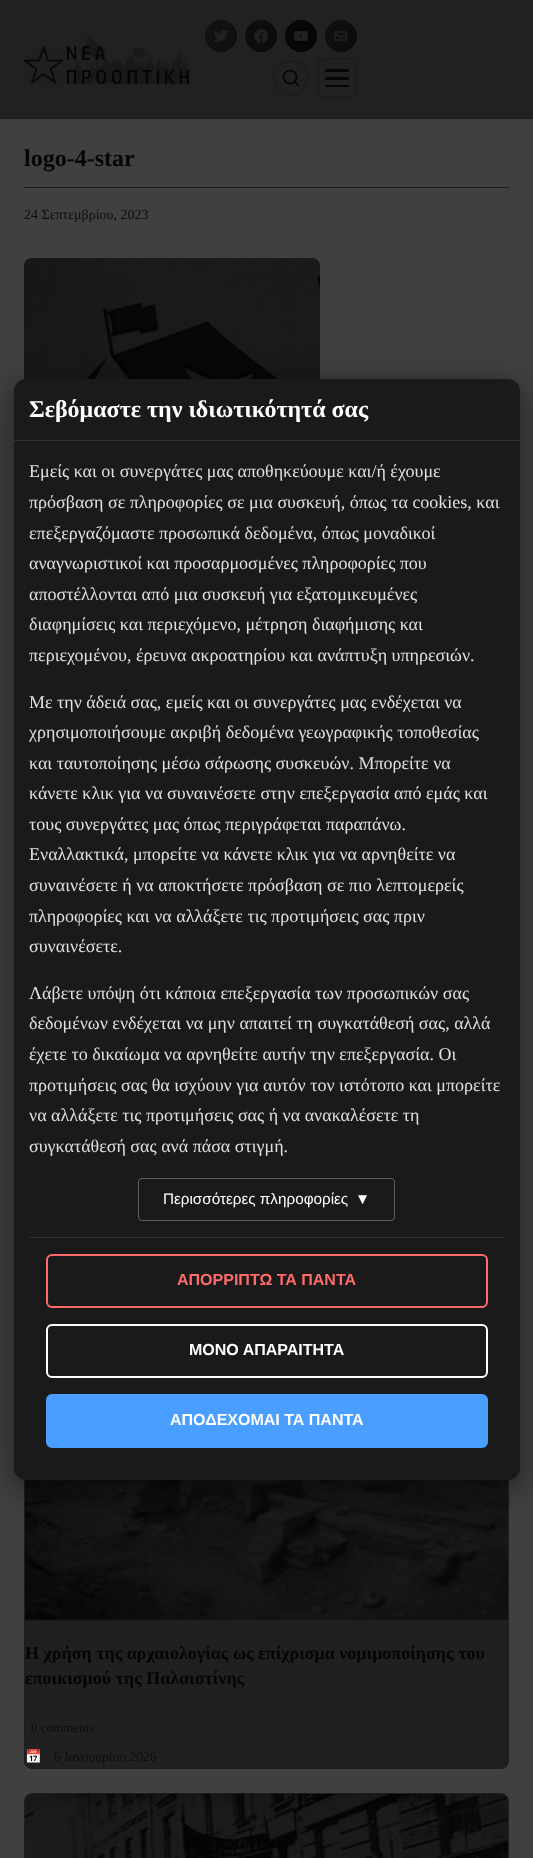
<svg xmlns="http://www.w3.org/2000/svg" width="533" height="1858">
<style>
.a{font:bold 24px Liberation Serif;fill:#050505}
.b{font:14px Liberation Serif;fill:#0e0e0e}
.c{font:bold 18px Liberation Serif;fill:#050505}
.d{font:13px Liberation Serif;fill:#0e0e0e}
.e{font:13.5px Noto Color Emoji;fill:#0e0e0e}
.f{font:13.5px Liberation Serif;fill:#0e0e0e}
.g{font:bold 24px Liberation Serif;fill:#fff}
.h{font:18px Liberation Serif;fill:#e0e0e0}
.i{font:15.25px Liberation Sans;fill:#fff}
.j{font:bold 16px Liberation Sans;fill:#ff6b6b}
.k{font:bold 16px Liberation Sans;fill:#fff}
</style>
<defs>
<linearGradient id="g1" gradientUnits="userSpaceOnUse" x1="205" y1="20" x2="237" y2="52"><stop offset="0" stop-color="#111"/><stop offset="1" stop-color="#0f0f0f"/></linearGradient>
<linearGradient id="g2" gradientUnits="userSpaceOnUse" x1="245" y1="20" x2="277" y2="52"><stop offset="0" stop-color="#0e0e0e"/><stop offset="1" stop-color="#0b0b0b"/></linearGradient>
<linearGradient id="g3" gradientUnits="userSpaceOnUse" x1="285" y1="20" x2="317" y2="52"><stop offset="0" stop-color="#070707"/><stop offset="1" stop-color="#060606"/></linearGradient>
<linearGradient id="g4" gradientUnits="userSpaceOnUse" x1="325" y1="20" x2="357" y2="52"><stop offset="0" stop-color="#101010"/><stop offset="1" stop-color="#0b0b0b"/></linearGradient>
</defs>
<rect width="100%" height="100%" fill="#404040"/>
<path fill="#212121" d="M0 0h533v118H0z"/>
<path fill="#1d1d1d" d="M0 118h533v1H0z"/>
<image href="1.png" x="24" y="36" width="165" height="49"/>
<circle fill="url(#g1)" cx="221" cy="36" r="16"/>
<image href="2.png" x="214" y="30" width="15" height="12"/>
<circle fill="url(#g2)" cx="261" cy="36" r="16"/>
<image href="3.png" x="254" y="29" width="14" height="14"/>
<circle fill="url(#g3)" cx="301" cy="36" r="16"/>
<image href="4.png" x="294" y="31" width="14" height="10"/>
<circle fill="url(#g4)" cx="341" cy="36" r="16"/>
<image href="5.png" x="334" y="31" width="14" height="10"/>
<circle fill="none" stroke="#1d1d1d" stroke-width="2" cx="291" cy="78" r="17"/>
<circle fill="none" stroke="#050505" stroke-width="1.7" cx="290" cy="77" r="6.5"/>
<path fill="none" stroke="#050505" stroke-width="1.7" stroke-linecap="round" stroke-linejoin="round" d="M298.5 85.5l-3.5-3.5"/>
<rect fill="none" stroke="#1d1d1d" stroke-width="2" x="318" y="59" width="38" height="38" rx="5"/>
<rect fill="#050505" x="325" y="69" width="24" height="3" rx="1.5"/>
<rect fill="#050505" x="325" y="77" width="24" height="3" rx="1.5"/>
<rect fill="#050505" x="325" y="85" width="24" height="2" rx="1"/>
<path fill="#1d1d1d" d="M24 187h485v1H24z"/>
<image href="6.png" x="24" y="258" width="296" height="122"/>
<rect fill="#202020" stroke="#1d1d1d" x="24.5" y="1348.5" width="484" height="420" rx="7.5"/>
<image href="7.png" x="25" y="1479" width="483" height="142"/>
<path fill="#1d1d1d" d="M25 1704h483v1H25z"/>
<rect fill="none" stroke="#1d1d1d" x="24.5" y="1793.5" width="484" height="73" rx="7.5"/>
<image href="8.png" x="25" y="1794" width="483" height="64"/>
<rect fill="#00000080" filter="blur(16px)" x="14" y="387" width="506" height="1101" rx="12"/>
<rect fill="#1a1a1a" x="14" y="379" width="506" height="1101" rx="12"/>
<path fill="#313131" d="M14 440h506v1H14z"/>
<rect fill="none" stroke="#5f5f5f" x="138.5" y="1178.5" width="256" height="42" rx="3.5"/>
<path fill="#313131" d="M30 1237h474v1H30z"/>
<rect fill="none" stroke="#ff6b6b" stroke-width="2" x="47" y="1255" width="440" height="52" rx="5"/>
<rect fill="none" stroke="#fff" stroke-width="2" x="47" y="1325" width="440" height="52" rx="5"/>
<rect fill="#4a9eff" stroke="#4a9eff" stroke-width="2" x="47" y="1395" width="440" height="52" rx="5"/>
<text class="a" x="24" y="166">logo-4-star</text>
<text class="b" x="24" y="219">24 Σεπτεμβρίου, 2023</text>
<text class="c" x="25" y="1659">Η χρήση της αρχαιολογίας ως επίχρισμα νομιμοποίησης του</text>
<text class="c" x="25" y="1684">εποικισμού της Παλαιστίνης</text>
<text class="d" x="31" y="1732">0 comments</text>
<text class="e" x="25" y="1761">📅</text>
<text class="f" x="54" y="1761">6 Ιανουαρίου 2026</text>
<text class="g" x="29" y="417">Σεβόμαστε την ιδιωτικότητά σας</text>
<text class="h" x="29" y="477">Εμείς και οι συνεργάτες μας αποθηκεύουμε και/ή έχουμε</text>
<text class="h" x="29" y="508">πρόσβαση σε πληροφορίες σε μια συσκευή, όπως τα cookies, και</text>
<text class="h" x="29" y="539">επεξεργαζόμαστε προσωπικά δεδομένα, όπως μοναδικοί</text>
<text class="h" x="29" y="569">αναγνωριστικοί και προσαρμοσμένες πληροφορίες που</text>
<text class="h" x="29" y="600">αποστέλλονται από μια συσκευή για εξατομικευμένες</text>
<text class="h" x="29" y="630">διαφημίσεις και περιεχόμενο, μέτρηση διαφήμισης και</text>
<text class="h" x="29" y="661">περιεχομένου, έρευνα ακροατηρίου και ανάπτυξη υπηρεσιών.</text>
<text class="h" x="29" y="708">Με την άδειά σας, εμείς και οι συνεργάτες μας ενδέχεται να</text>
<text class="h" x="29" y="738">χρησιμοποιήσουμε ακριβή δεδομένα γεωγραφικής τοποθεσίας</text>
<text class="h" x="29" y="769">και ταυτοποίησης μέσω σάρωσης συσκευών. Μπορείτε να</text>
<text class="h" x="29" y="799">κάνετε κλικ για να συναινέσετε στην επεξεργασία από εμάς και</text>
<text class="h" x="29" y="830">τους συνεργάτες μας όπως περιγράφεται παραπάνω.</text>
<text class="h" x="29" y="860">Εναλλακτικά, μπορείτε να κάνετε κλικ για να αρνηθείτε να</text>
<text class="h" x="29" y="891">συναινέσετε ή να αποκτήσετε πρόσβαση σε πιο λεπτομερείς</text>
<text class="h" x="29" y="922">πληροφορίες και να αλλάξετε τις προτιμήσεις σας πριν</text>
<text class="h" x="29" y="952">συναινέσετε.</text>
<text class="h" x="29" y="999">Λάβετε υπόψη ότι κάποια επεξεργασία των προσωπικών σας</text>
<text class="h" x="29" y="1029">δεδομένων ενδέχεται να μην απαιτεί τη συγκατάθεσή σας, αλλά</text>
<text class="h" x="29" y="1060">έχετε το δικαίωμα να αρνηθείτε αυτήν την επεξεργασία. Οι</text>
<text class="h" x="29" y="1091">προτιμήσεις σας θα ισχύουν για αυτόν τον ιστότοπο και μπορείτε</text>
<text class="h" x="29" y="1121">να αλλάξετε τις προτιμήσεις σας ή να ανακαλέσετε τη</text>
<text class="h" x="29" y="1152">συγκατάθεσή σας ανά πάσα στιγμή.</text>
<text class="i" x="163" y="1204">Περισσότερες πληροφορίες</text>
<text class="i" x="355" y="1204">▼</text>
<text class="j" x="177" y="1285">ΑΠΟΡΡΙΠΤΩ ΤΑ ΠΑΝΤΑ</text>
<text class="k" x="189" y="1355">ΜΟΝΟ ΑΠΑΡΑΙΤΗΤΑ</text>
<text class="k" x="170" y="1425">ΑΠΟΔΕΧΟΜΑΙ ΤΑ ΠΑΝΤΑ</text>
</svg>
